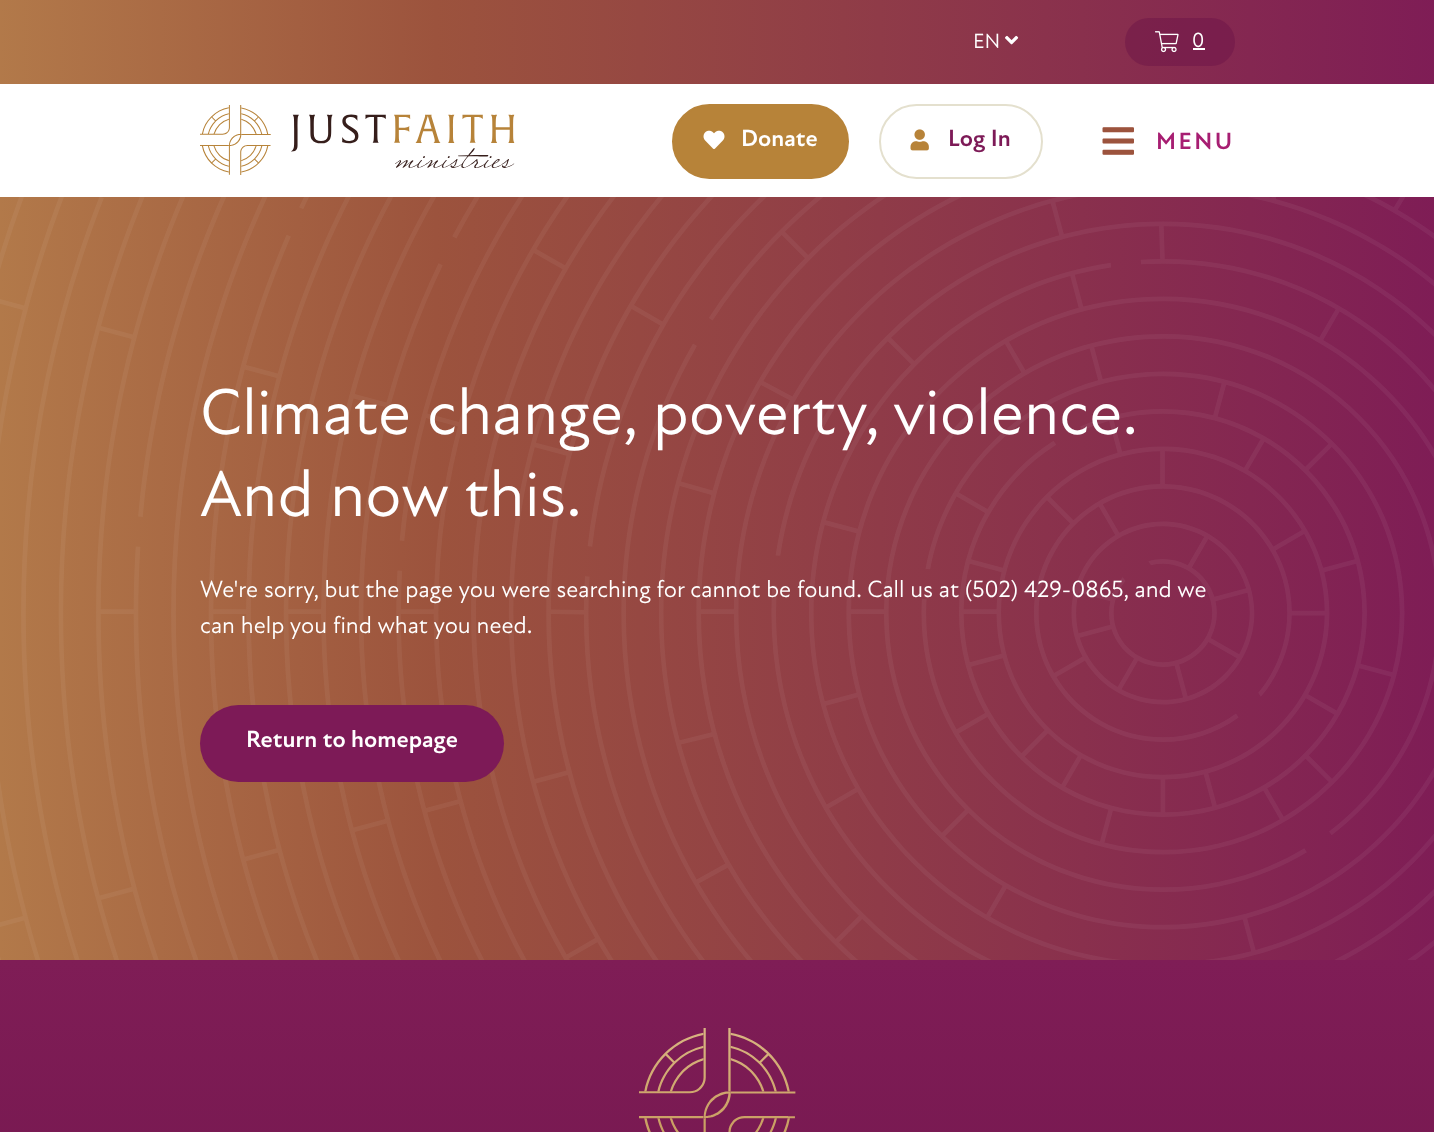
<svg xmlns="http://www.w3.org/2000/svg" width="1434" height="1132">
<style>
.a{font:21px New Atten;fill:#fff}
.b{font:bold 24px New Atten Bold;fill:#fff}
.c{font:bold 24px New Atten Bold;fill:#7d1a57}
.d{font:bold 24px New Atten Bold;letter-spacing:2.5px;fill:#a71e72}
.e{font:66px New Atten;fill:#fff}
.f{font:24px New Atten;fill:#fff}
</style>
<defs>
<linearGradient id="g1" gradientUnits="userSpaceOnUse" x1="-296" y1="42" x2="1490" y2="42"><stop offset="0" stop-color="#c19352"/><stop offset="0.41" stop-color="#9c533d"/><stop offset="1" stop-color="#7d1a57"/></linearGradient>
<linearGradient id="g2" gradientUnits="userSpaceOnUse" x1="-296" y1="578" x2="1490" y2="578"><stop offset="0" stop-color="#c19352"/><stop offset="0.41" stop-color="#9c533d"/><stop offset="1" stop-color="#7d1a57"/></linearGradient>
<linearGradient id="g3" gradientUnits="userSpaceOnUse" x1="717" y1="960" x2="717" y2="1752"><stop offset="0" stop-color="#7f1d56"/><stop offset="1" stop-color="#660f45"/></linearGradient>
</defs>
<rect width="100%" height="100%" fill="#fff"/>
<path fill="url(#g1)" d="M0 0h1434v84H0z"/>
<image href="1.png" x="1005" y="35" width="14" height="10"/>
<rect fill="#660f4566" x="1125" y="18" width="110" height="48" rx="24"/>
<image href="2.png" x="1155" y="31" width="24" height="22"/>
<path fill="#fff" d="M1193 48h12v2H1193z"/>
<image href="3.png" x="200" y="105" width="315" height="70"/>
<rect fill="#b78339" stroke="#b78339" stroke-width="2" x="673" y="105" width="175" height="73" rx="36.5"/>
<image href="4.png" x="703" y="130" width="22" height="19"/>
<rect fill="none" stroke="#e4e0ce" stroke-width="2" x="880" y="105" width="162" height="73" rx="36.5"/>
<image href="5.png" x="910" y="129" width="19" height="22"/>
<image href="6.png" x="1102" y="127" width="32" height="28"/>
<path fill="url(#g2)" d="M0 197h1434v763H0z"/>
<image href="7.png" x="0" y="197" width="1434" height="763"/>
<rect fill="#7d1a57" x="200" y="705" width="304" height="77" rx="38.5"/>
<path fill="url(#g3)" d="M0 960h1434v172H0z"/>
<image href="8.png" x="639" y="1028" width="157" height="104"/>
<text class="a" x="973" y="48">EN</text>
<text class="a" x="1192" y="47">0</text>
<text class="b" x="741" y="146">Donate</text>
<text class="c" x="948" y="146">Log In</text>
<text class="d" x="1156" y="149">MENU</text>
<text class="e" x="200" y="434" word-spacing="-0.5">Climate change, poverty, violence.</text>
<text class="e" x="200" y="516">And now this.</text>
<text class="f" x="200" y="597">We're sorry, but the page you were searching for cannot be found. Call us at (502) 429-0865, and we</text>
<text class="f" x="200" y="633">can help you find what you need.</text>
<text class="b" x="246" y="747">Return to homepage</text>
</svg>
